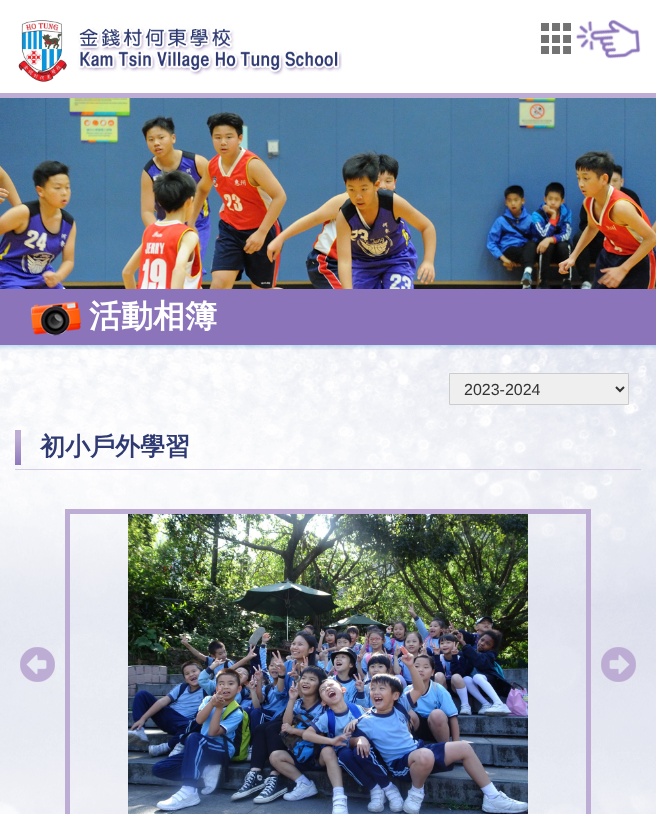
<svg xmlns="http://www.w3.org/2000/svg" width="656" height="814">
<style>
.a{font:bold 32px WenQuanYi Zen Hei;fill:#fff}
.b{font:16px Liberation Sans;fill:#333}
.c{font:bold 25px WenQuanYi Zen Hei;fill:#2e3a71}
</style>
<defs>
<linearGradient id="g1" gradientUnits="userSpaceOnUse" x1="18" y1="430" x2="18" y2="465"><stop offset="0.2" stop-color="#bdadd4"/><stop offset="1" stop-color="#8e78bc"/></linearGradient>
</defs>
<rect width="100%" height="100%" fill="#fff"/>
<image href="1.png" x="18" y="20" width="324" height="62"/>
<image href="2.png" x="541" y="23" width="30" height="31"/>
<image href="3.png" x="576" y="19" width="65" height="40"/>
<path fill="#8b74ba" d="M0 289h656v56H0z"/>
<path fill="#bdadd4" d="M0 93h656v5H0z"/>
<image href="4.png" x="0" y="98" width="656" height="191"/>
<image href="5.png" x="30" y="301" width="51" height="35"/>
<image href="6.png" x="0" y="345" width="656" height="469"/>
<image href="7.png" x="0" y="345" width="656" height="5"/>
<path fill="#efefef" stroke="#ccc" d="M449.5 373.5h179v31H449.5z"/>
<path fill="none" stroke="#333" stroke-width="2" d="M616 387l4 4l4-4"/>
<path fill="#d6cce4" d="M15 469h626v1H15z"/>
<path fill="url(#g1)" d="M15 430h6v35H15z"/>
<path fill="none" stroke="#bdadd4" stroke-width="5" d="M67.5 511.5h521v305H67.5z"/>
<image href="8.png" x="128" y="514" width="400" height="300"/>
<image href="9.png" x="20" y="647" width="35" height="35"/>
<image href="10.png" x="601" y="647" width="35" height="35"/>
<text class="a" x="89" y="327">活動相簿</text>
<text class="b" x="464" y="395">2023-2024</text>
<text class="c" x="40" y="455">初小戶外學習</text>
</svg>
